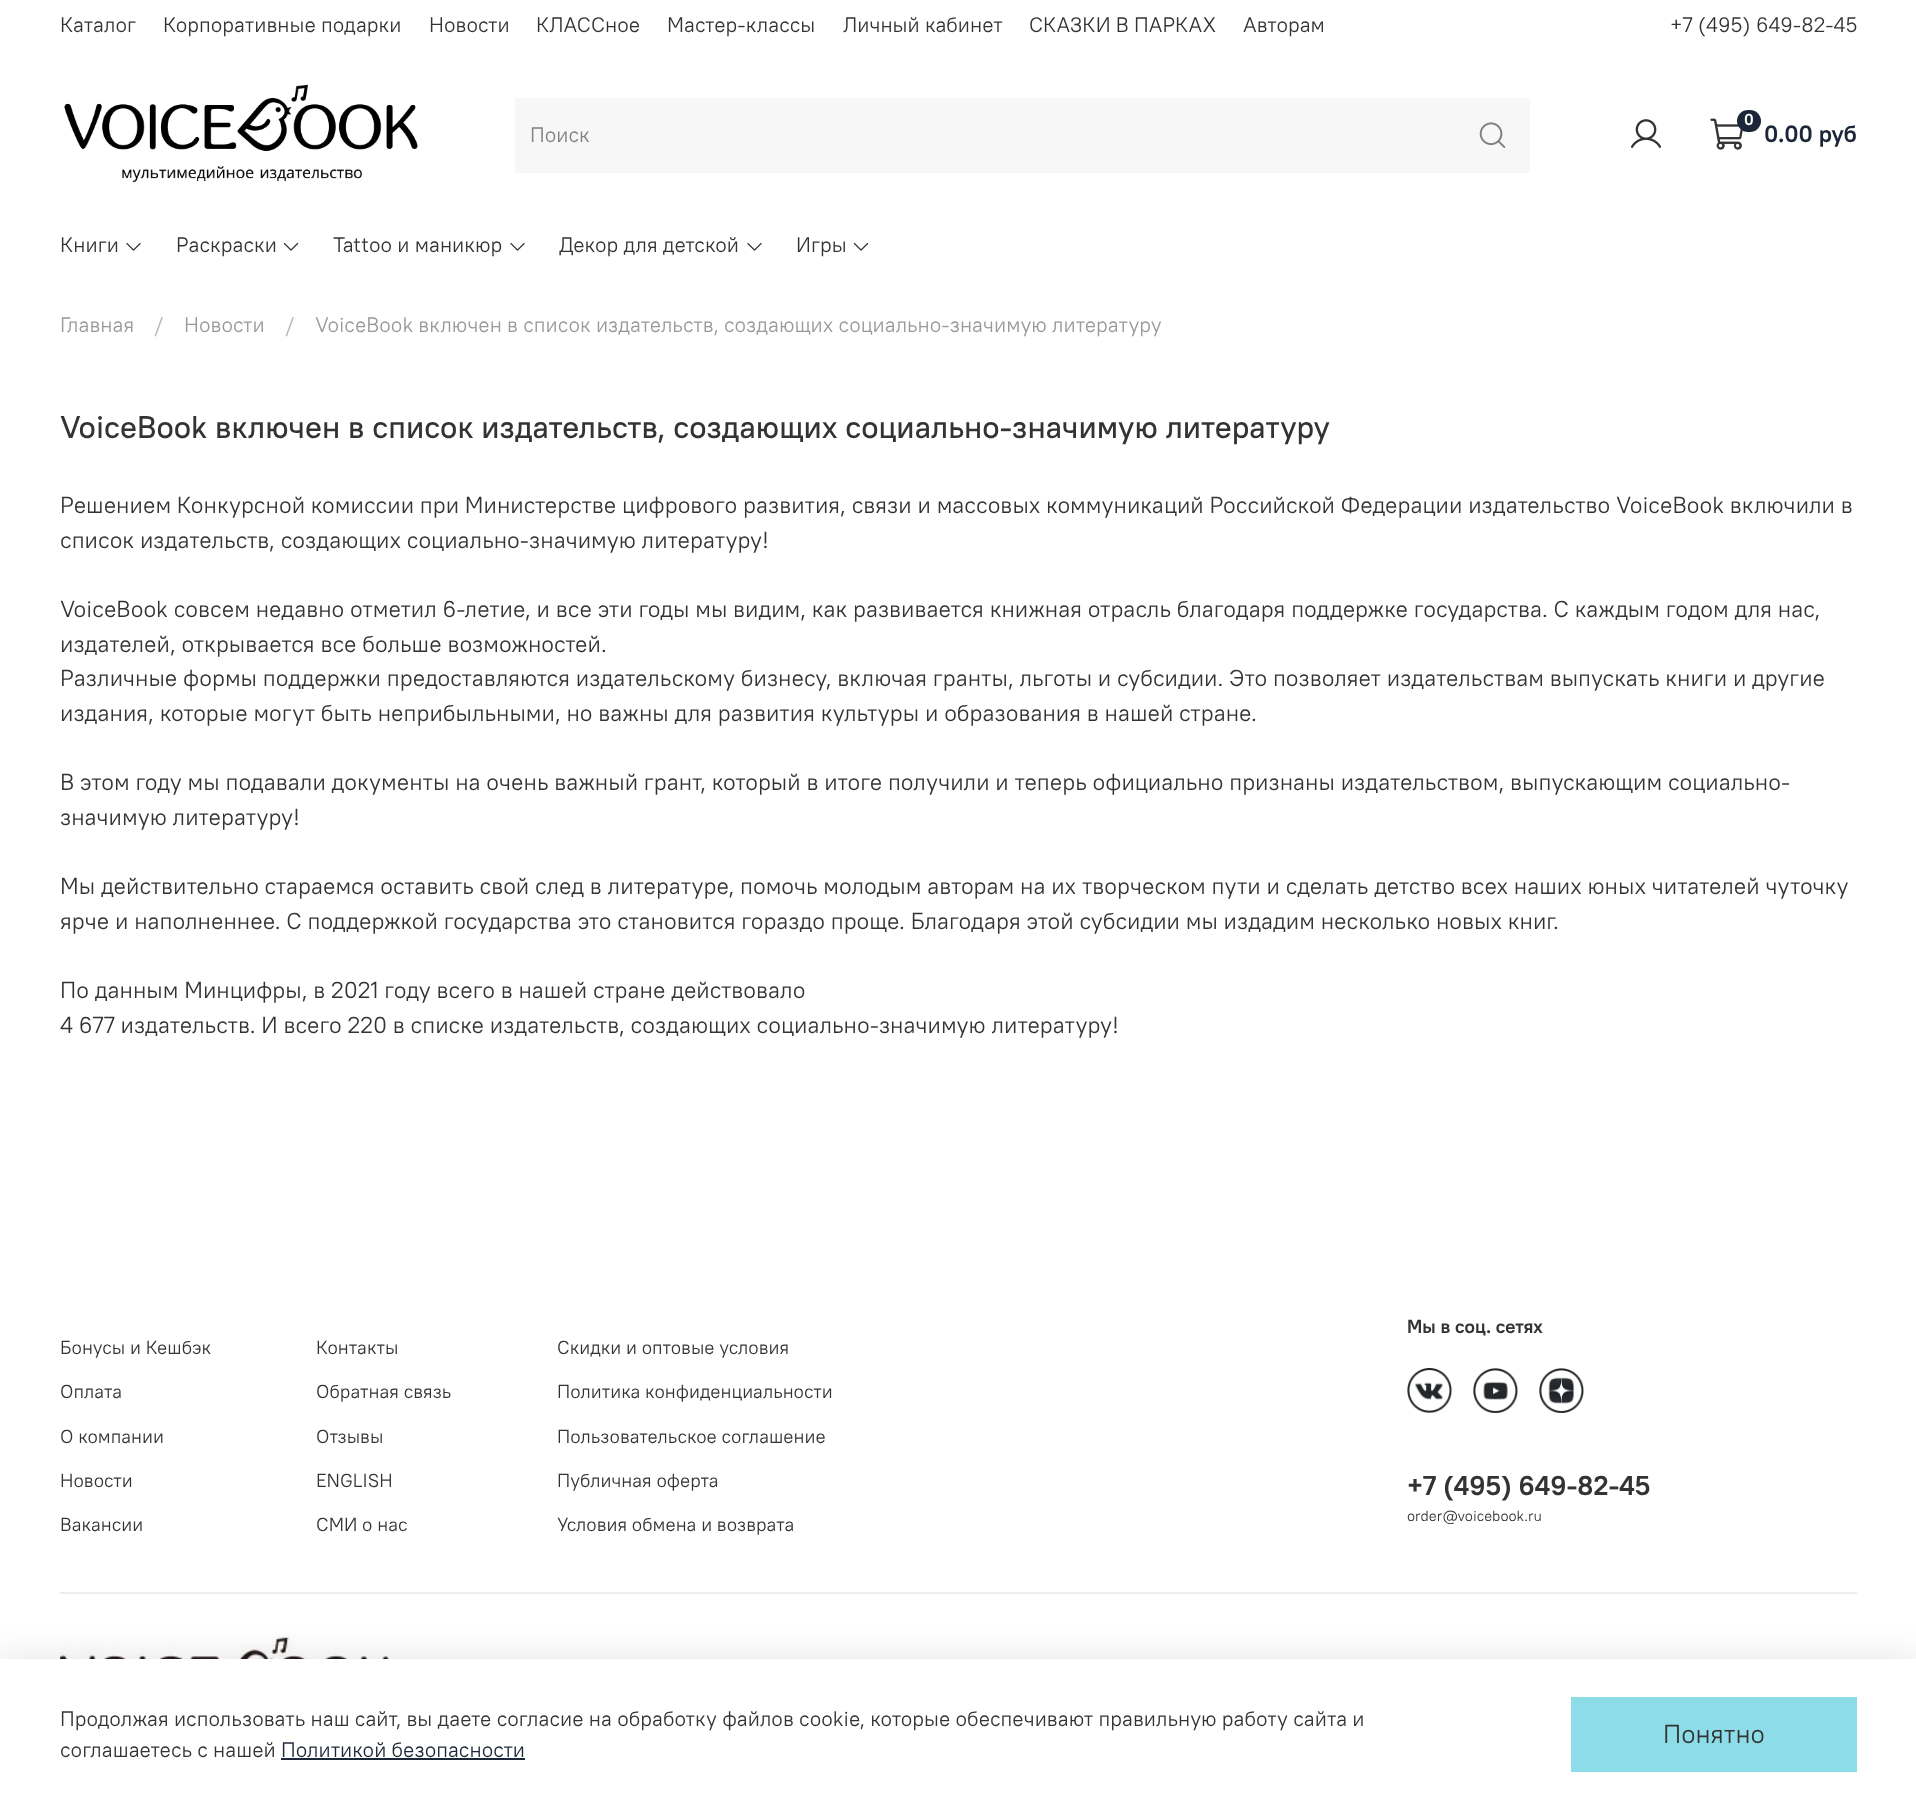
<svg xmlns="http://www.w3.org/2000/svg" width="1916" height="1810">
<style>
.a{font:21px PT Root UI;fill:#333}
.b{font:21px PT Root UI;fill:#808080}
.c{font:bold 16px PT Root UI;fill:#fff}
.d{font:bold 23.5px PT Root UI;fill:#1b2738}
.e{font:21px PT Root UI;fill:#999}
.f{font:21px PT Root UI;fill:#b8b8b8}
.g{font:500 31.5px PT Root UI;fill:#333}
.h{font:23.1px PT Root UI;fill:#333}
.i{font:18.9px PT Root UI;fill:#333}
.j{font:bold 18.9px PT Root UI;fill:#333}
.k{font:bold 27.25px PT Root UI;fill:#333}
.l{font:14.75px PT Root UI;fill:#333}
.m{font:21px PT Root UI;fill:#1b2738}
.n{font:26px PT Root UI;fill:#333}
</style>
<rect width="100%" height="100%" fill="#fff"/>
<image href="1.png" x="64" y="84" width="354" height="99"/>
<path fill="#f7f7f7" d="M515 98h1015v75H515z"/>
<image href="2.png" x="1479" y="122" width="27" height="26"/>
<image href="3.png" x="1631" y="119" width="31" height="29"/>
<image href="4.png" x="1710" y="118" width="33" height="32"/>
<rect fill="#1b2738" x="1737" y="110" width="24" height="22" rx="11"/>
<image href="5.png" x="126" y="242" width="15" height="9"/>
<image href="6.png" x="283" y="242" width="16" height="9"/>
<image href="5.png" x="510" y="242" width="15" height="9"/>
<image href="5.png" x="747" y="242" width="15" height="9"/>
<image href="6.png" x="853" y="242" width="16" height="9"/>
<image href="7.png" x="1407" y="1368" width="45" height="45"/>
<image href="8.png" x="1473" y="1368" width="45" height="45"/>
<image href="9.png" x="1539" y="1368" width="45" height="45"/>
<path fill="#ededed" d="M60 1592h1797v2H60z"/>
<image href="10.png" x="60" y="1635" width="330" height="24"/>
<path fill="#00000017" filter="blur(17px)" d="M-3 1655h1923v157H-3z"/>
<path fill="#fff" d="M0 1659h1916v151H0z"/>
<path fill="#1b2738" d="M281 1758h244v2H281z"/>
<path fill="#8ddde9" d="M1571 1697h286v75H1571z"/>
<text class="a" x="60" y="32">Каталог</text>
<text class="a" x="163" y="32">Корпоративные подарки</text>
<text class="a" x="429" y="32">Новости</text>
<text class="a" x="536" y="32">КЛАССное</text>
<text class="a" x="667" y="32">Мастер-классы</text>
<text class="a" x="843" y="32">Личный кабинет</text>
<text class="a" x="1029" y="32">СКАЗКИ В ПАРКАХ</text>
<text class="a" x="1243" y="32">Авторам</text>
<text class="a" x="1670" y="32">+7 (495) 649-82-45</text>
<text class="b" x="530" y="142">Поиск</text>
<text class="c" x="1744" y="125">0</text>
<text class="d" x="1764" y="142">0.00 руб</text>
<text class="a" x="60" y="252">Книги</text>
<text class="a" x="176" y="252">Раскраски</text>
<text class="a" x="333" y="252">Tattoo и маникюр</text>
<text class="a" x="559" y="252">Декор для детской</text>
<text class="a" x="796" y="252">Игры</text>
<text class="e" x="60" y="332">Главная</text>
<text class="f" x="154" y="332">/</text>
<text class="e" x="184" y="332">Новости</text>
<text class="f" x="285" y="332">/</text>
<text class="e" x="315" y="332">VoiceBook включен в список издательств, создающих социально-значимую литературу</text>
<text class="g" x="60" y="438">VoiceBook включен в список издательств, создающих социально-значимую литературу</text>
<text class="h" x="60" y="513">Решением Конкурсной комиссии при Министерстве цифрового развития, связи и массовых коммуникаций Российской Федерации издательство VoiceBook включили в</text>
<text class="h" x="60" y="548">список издательств, создающих социально-значимую литературу!</text>
<text class="h" x="60" y="617">VoiceBook совсем недавно отметил 6-летие, и все эти годы мы видим, как развивается книжная отрасль благодаря поддержке государства. С каждым годом для нас,</text>
<text class="h" x="60" y="652">издателей, открывается все больше возможностей.</text>
<text class="h" x="60" y="686">Различные формы поддержки предоставляются издательскому бизнесу, включая гранты, льготы и субсидии. Это позволяет издательствам выпускать книги и другие</text>
<text class="h" x="60" y="721">издания, которые могут быть неприбыльными, но важны для развития культуры и образования в нашей стране.</text>
<text class="h" x="60" y="790">В этом году мы подавали документы на очень важный грант, который в итоге получили и теперь официально признаны издательством, выпускающим социально-</text>
<text class="h" x="60" y="825">значимую литературу!</text>
<text class="h" x="60" y="894">Мы действительно стараемся оставить свой след в литературе, помочь молодым авторам на их творческом пути и сделать детство всех наших юных читателей чуточку</text>
<text class="h" x="60" y="929">ярче и наполненнее. С поддержкой государства это становится гораздо проще. Благодаря этой субсидии мы издадим несколько новых книг.</text>
<text class="h" x="60" y="998">По данным Минцифры, в 2021 году всего в нашей стране действовало</text>
<text class="h" x="60" y="1033">4 677 издательств. И всего 220 в списке издательств, создающих социально-значимую литературу!</text>
<text class="i" x="60" y="1354">Бонусы и Кешбэк</text>
<text class="i" x="60" y="1398">Оплата</text>
<text class="i" x="60" y="1443">О компании</text>
<text class="i" x="60" y="1487">Новости</text>
<text class="i" x="60" y="1531">Вакансии</text>
<text class="i" x="316" y="1354">Контакты</text>
<text class="i" x="316" y="1398">Обратная связь</text>
<text class="i" x="316" y="1443">Отзывы</text>
<text class="i" x="316" y="1487">ENGLISH</text>
<text class="i" x="316" y="1531">СМИ о нас</text>
<text class="i" x="557" y="1354">Скидки и оптовые условия</text>
<text class="i" x="557" y="1398">Политика конфиденциальности</text>
<text class="i" x="557" y="1443">Пользовательское соглашение</text>
<text class="i" x="557" y="1487">Публичная оферта</text>
<text class="i" x="557" y="1531">Условия обмена и возврата</text>
<text class="j" x="1407" y="1333">Мы в соц. сетях</text>
<text class="k" x="1407" y="1495">+7 (495) 649-82-45</text>
<text class="l" x="1407" y="1521">order@voicebook.ru</text>
<text class="a" x="60" y="1726">Продолжая использовать наш сайт, вы даете согласие на обработку файлов cookie, которые обеспечивают правильную работу сайта и</text>
<text class="a" x="60" y="1757">соглашаетесь с нашей</text>
<text class="m" x="281" y="1757">Политикой безопасности</text>
<text class="n" x="1663" y="1743">Понятно</text>
</svg>
